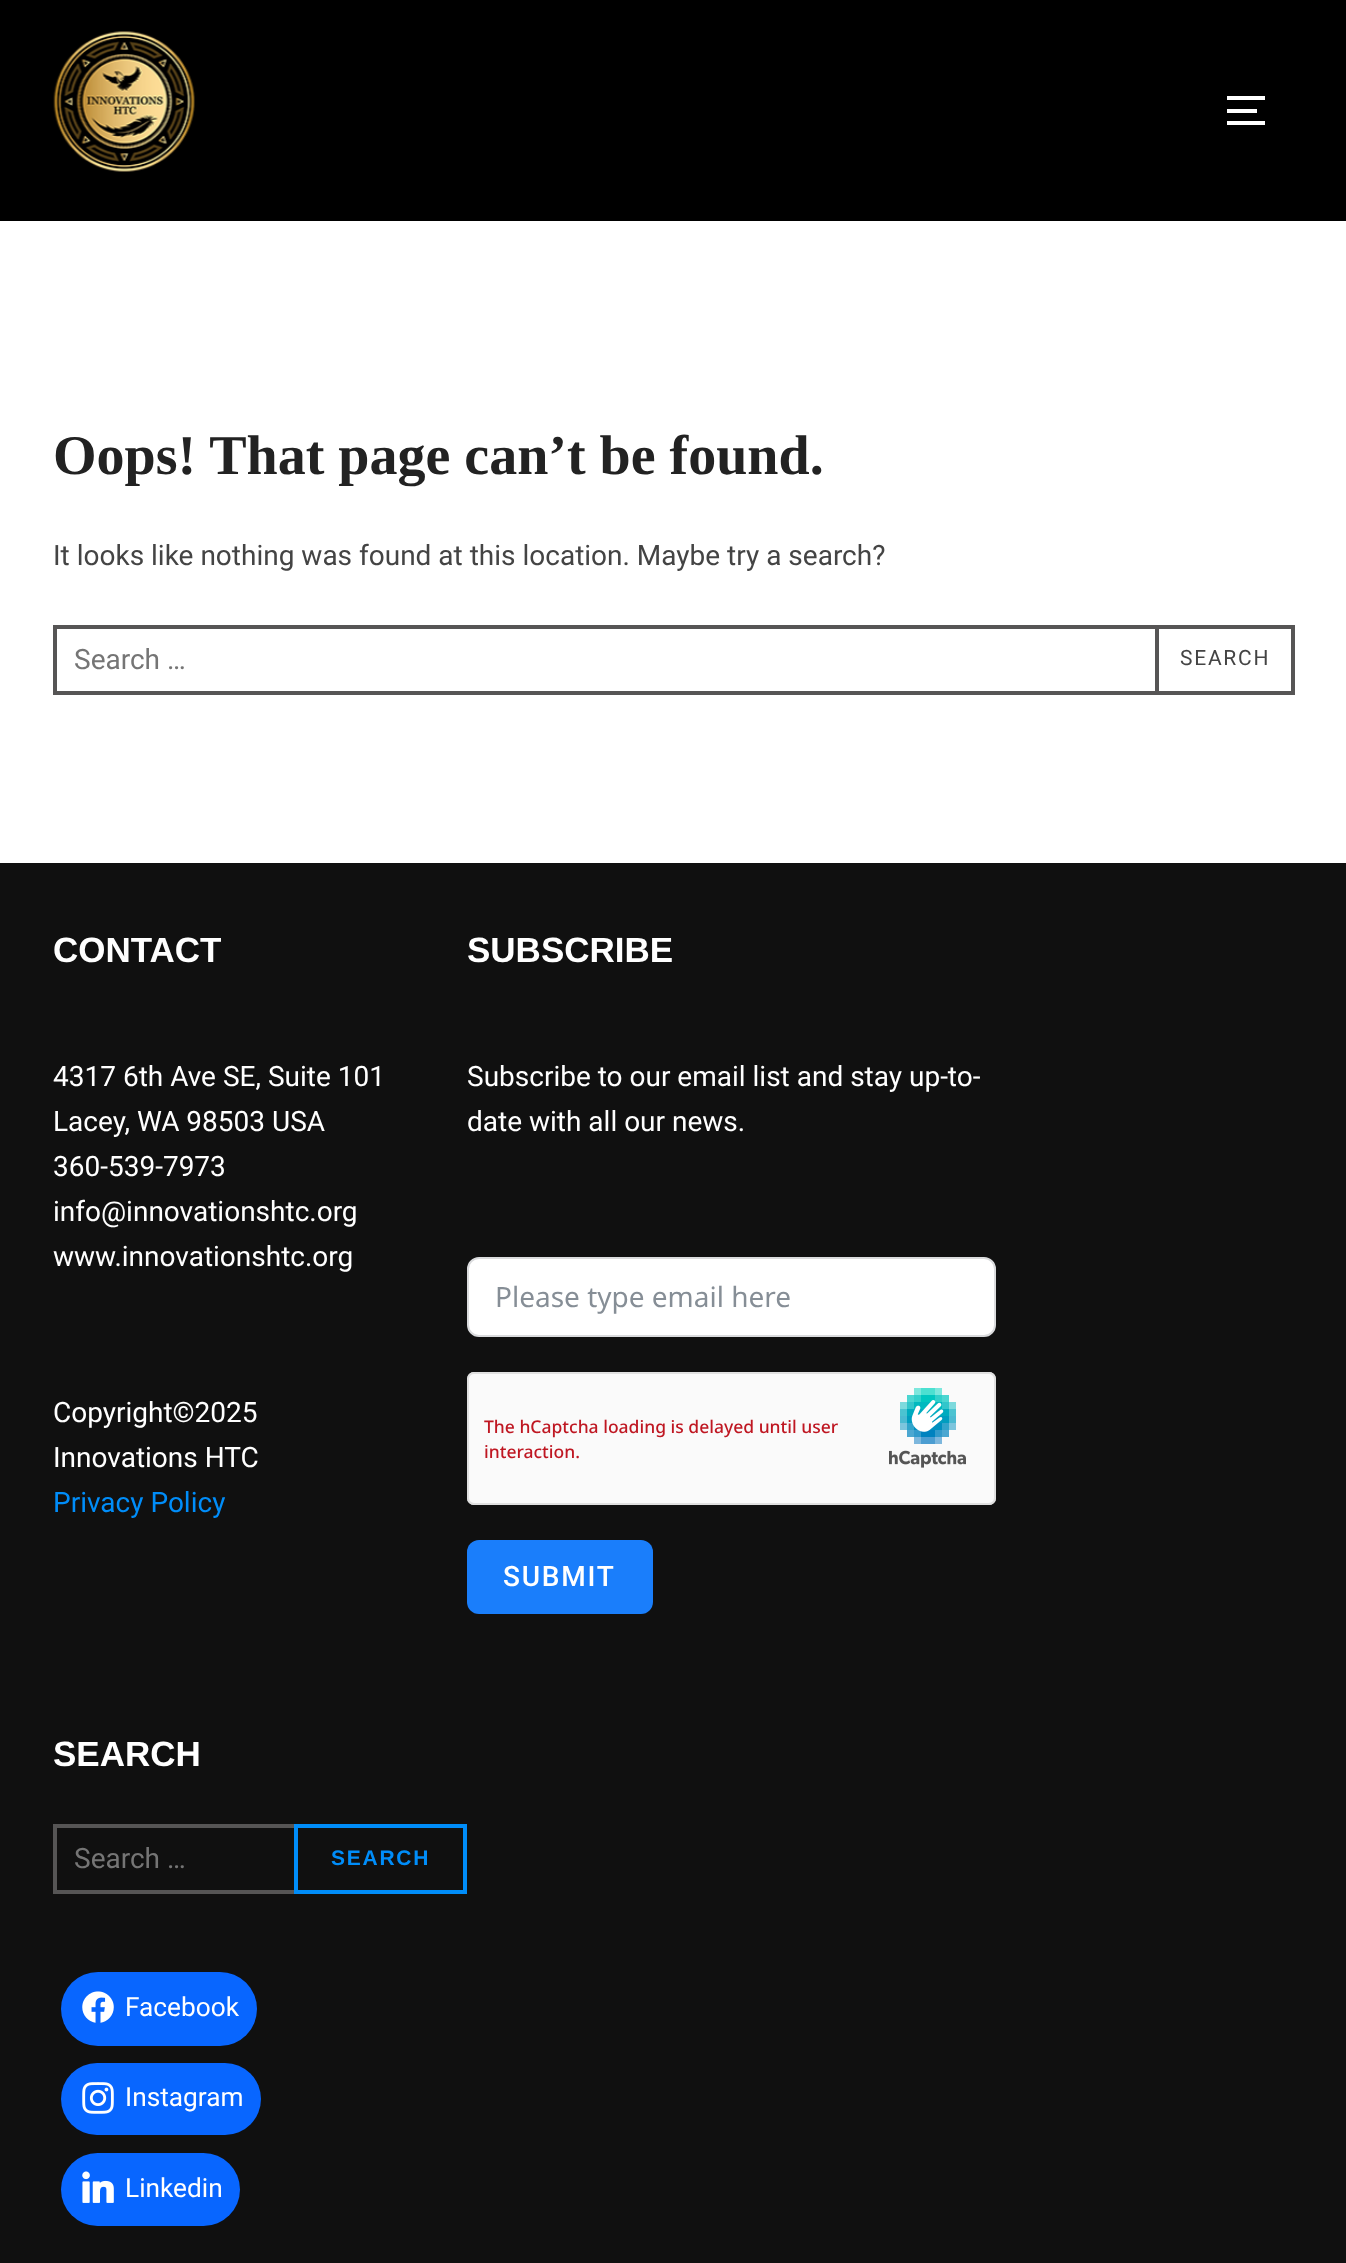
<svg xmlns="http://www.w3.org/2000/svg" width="1346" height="2263">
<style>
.a{font:bold 56px Liberation Serif;fill:#222}
.b{font:28px Roboto;fill:#444}
.c{font:28px Roboto;fill:#757575}
.d{font:21px Roboto;letter-spacing:1.75px;fill:#444}
.e{font:bold 35px Liberation Sans;fill:#fff}
.f{font:28px Roboto;fill:#fff}
.g{font:28px Roboto;fill:#008df9}
.h{font:28px Noto Sans;fill:#868e96}
.i{font:500 17.5px Noto Sans;fill:#bf1722}
.j{font:500 28px Roboto;letter-spacing:1.75px;fill:#fff}
.k{font:bold 21px Liberation Sans;letter-spacing:1.75px;fill:#008df9}
.l{font:26.25px Roboto;fill:#fff}
</style>
<rect width="100%" height="100%" fill="#fff"/>
<path fill="#000" d="M0 0h1346v221H0z"/>
<image href="1.png" x="53" y="31" width="142" height="141"/>
<path fill="#fff" d="M1227 96h38v4H1227z"/>
<path fill="#fff" d="M1227 109h30v4H1227z"/>
<path fill="#fff" d="M1227 121h38v4H1227z"/>
<path fill="none" stroke="#565555" stroke-width="4" d="M55 627h1238v66H55z"/>
<path fill="none" stroke="#565555" stroke-width="4" d="M1157 627h136v66H1157z"/>
<path fill="#101010" d="M0 863h1346v1400H0z"/>
<rect fill="#fff" stroke="#dadbdd" stroke-width="2" x="468" y="1258" width="527" height="78" rx="11"/>
<rect fill="#fafafa" x="467" y="1372" width="529" height="133" rx="7"/>
<image href="2.png" x="889" y="1388" width="77" height="80"/>
<rect fill="none" stroke="#e0e0e0" stroke-width="2" x="468" y="1373" width="527" height="131" rx="6"/>
<rect fill="#1a7efb" x="467" y="1540" width="186" height="74" rx="12"/>
<path fill="none" stroke="#565555" stroke-width="4" d="M55 1826h410v66H55z"/>
<path fill="none" stroke="#008df9" stroke-width="4" d="M296 1826h169v66H296z"/>
<rect fill="#0866ff" x="61" y="1972" width="196" height="74" rx="37"/>
<image href="3.png" x="82" y="1991" width="32" height="32"/>
<rect fill="#0866ff" x="61" y="2063" width="200" height="72" rx="36"/>
<image href="4.png" x="82" y="2082" width="32" height="32"/>
<rect fill="#0866ff" x="61" y="2153" width="179" height="73" rx="36.5"/>
<image href="5.png" x="82" y="2171" width="32" height="32"/>
<text class="a" x="53" y="474">Oops! That page can’t be found.</text>
<text class="b" x="53" y="565">It looks like nothing was found at this location. Maybe try a search?</text>
<text class="c" x="74" y="669">Search …</text>
<text class="d" x="1180" y="665">SEARCH</text>
<text class="e" x="53" y="962">CONTACT</text>
<text class="f" x="53" y="1086">4317 6th Ave SE, Suite 101</text>
<text class="f" x="53" y="1131">Lacey, WA 98503 USA</text>
<text class="f" x="53" y="1176">360-539-7973</text>
<text class="f" x="53" y="1221">info@innovationshtc.org</text>
<text class="f" x="53" y="1266">www.innovationshtc.org</text>
<text class="f" x="53" y="1422">Copyright©2025</text>
<text class="f" x="53" y="1467">Innovations HTC</text>
<text class="g" x="53" y="1512">Privacy Policy</text>
<text class="e" x="467" y="962">SUBSCRIBE</text>
<text class="f" x="467" y="1086">Subscribe to our email list and stay up-to-</text>
<text class="f" x="467" y="1131">date with all our news.</text>
<text class="h" x="495" y="1307">Please type email here</text>
<text class="i" x="484" y="1433">The hCaptcha loading is delayed until user</text>
<text class="i" x="484" y="1458">interaction.</text>
<text class="j" x="503" y="1586">SUBMIT</text>
<text class="e" x="53" y="1766">SEARCH</text>
<text class="c" x="74" y="1868">Search …</text>
<text class="k" x="331" y="1865">SEARCH</text>
<text class="l" x="125" y="2016">Facebook</text>
<text class="l" x="125" y="2106">Instagram</text>
<text class="l" x="125" y="2197">Linkedin</text>
</svg>
